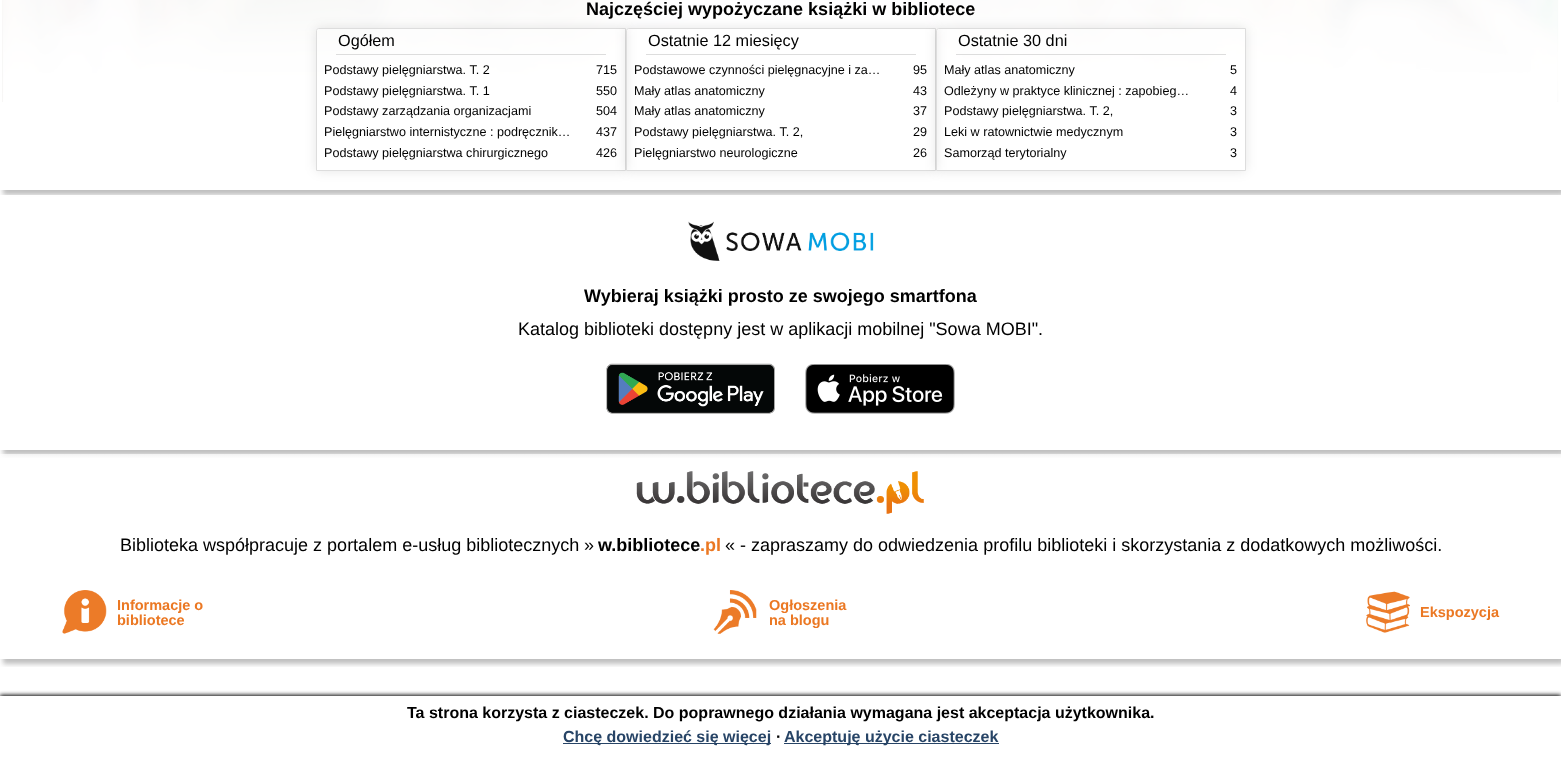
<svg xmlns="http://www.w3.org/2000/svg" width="1561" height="757">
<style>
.a{font:bold 18px Liberation Sans;fill:#000}
.b{font:16.25px Liberation Sans;fill:#000}
.c{font:12.6px Liberation Sans;fill:#000}
.d{font:18px Liberation Sans;fill:#000}
.e{font:bold 18px Liberation Sans;fill:#eb7823}
.f{font:bold 14.5px Liberation Sans;fill:#eb7823}
.g{font:bold 16px Liberation Sans;fill:#000}
.h{font:bold 16px Liberation Sans;fill:#274466}
</style>
<defs>
<clipPath id="clip1"><path d="M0 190h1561v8H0z"/></clipPath>
<clipPath id="clip2"><path d="M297 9h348v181h-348zm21.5 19h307.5v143h-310v-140.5c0-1.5 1-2.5 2.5-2.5z" clip-rule="evenodd"/></clipPath>
<clipPath id="clip3"><path d="M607 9h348v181h-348zm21.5 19h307.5v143h-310v-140.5c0-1.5 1-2.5 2.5-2.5z" clip-rule="evenodd"/></clipPath>
<clipPath id="clip4"><path d="M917 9h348v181h-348zm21.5 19h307.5v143h-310v-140.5c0-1.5 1-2.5 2.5-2.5z" clip-rule="evenodd"/></clipPath>
<clipPath id="clip5"><path d="M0 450h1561v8H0z"/></clipPath>
<clipPath id="clip6"><path d="M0 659h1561v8H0z"/></clipPath>
<linearGradient id="g1" gradientUnits="userSpaceOnUse" x1="781" y1="659" x2="781" y2="454"><stop offset="0" stop-color="#fff"/><stop offset="0.5" stop-color="#fff"/><stop offset="1" stop-color="#fff" stop-opacity="0.7"/></linearGradient>
</defs>
<rect width="100%" height="100%" fill="#fff"/>
<image href="1.png" x="0" y="0" width="1560" height="103"/>
<g clip-path="url(#clip1)">
<path fill="#00000040" filter="blur(2.5px)" d="M3 -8h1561v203H3z"/>
</g>
<g clip-path="url(#clip2)">
<rect fill="#0000001a" filter="blur(6px)" x="316" y="28" width="310" height="143" rx="2.5"/>
</g>
<path fill="none" stroke="#ddd" d="M318.5 28.5h307v142h-309v-140c0-1 1-2 2-2z"/>
<path fill="#ddd" d="M336 54h270v1H336z"/>
<g clip-path="url(#clip3)">
<rect fill="#0000001a" filter="blur(6px)" x="626" y="28" width="310" height="143" rx="2.5"/>
</g>
<path fill="none" stroke="#ddd" d="M628.5 28.5h307v142h-309v-140c0-1 1-2 2-2z"/>
<path fill="#ddd" d="M646 54h270v1H646z"/>
<g clip-path="url(#clip4)">
<rect fill="#0000001a" filter="blur(6px)" x="936" y="28" width="310" height="143" rx="2.5"/>
</g>
<path fill="none" stroke="#ddd" d="M938.5 28.5h307v142h-309v-140c0-1 1-2 2-2z"/>
<path fill="#ddd" d="M956 54h270v1H956z"/>
<g clip-path="url(#clip5)">
<path fill="#00000040" filter="blur(2.5px)" d="M3 200h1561v255H3z"/>
</g>
<path fill="#fffffff2" d="M0 195h1561v4H0z"/>
<image href="2.png" x="688" y="221" width="186" height="40"/>
<image href="3.png" x="606" y="363" width="169" height="51"/>
<image href="4.png" x="805" y="364" width="150" height="50"/>
<g clip-path="url(#clip6)">
<path fill="#00000040" filter="blur(2.5px)" d="M3 459h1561v205H3z"/>
</g>
<path fill="url(#g1)" d="M0 454h1561v205H0z"/>
<image href="5.png" x="636" y="471" width="288" height="43"/>
<image href="6.png" x="62" y="590" width="45" height="44"/>
<image href="7.png" x="713" y="590" width="44" height="44"/>
<image href="8.png" x="1366" y="591" width="44" height="42"/>
<path fill="#000" filter="blur(2px)" d="M0 695h1561v61H0z"/>
<path fill="#fff" d="M0 696h1561v61H0z"/>
<path fill="#274466" d="M563 743h208v1H563z"/>
<path fill="#274466" d="M784 743h215v1H784z"/>
<text class="a" x="586" y="15">Najczęściej wypożyczane książki w bibliotece</text>
<text class="b" x="338" y="46">Ogółem</text>
<text class="c" x="324" y="74">Podstawy pielęgniarstwa. T. 2</text>
<text class="c" x="596" y="74">715</text>
<text class="c" x="324" y="95">Podstawy pielęgniarstwa. T. 1</text>
<text class="c" x="596" y="95">550</text>
<text class="c" x="324" y="115">Podstawy zarządzania organizacjami</text>
<text class="c" x="596" y="115">504</text>
<text class="c" x="324" y="136">Pielęgniarstwo internistyczne : podręcznik…</text>
<text class="c" x="596" y="136">437</text>
<text class="c" x="324" y="157">Podstawy pielęgniarstwa chirurgicznego</text>
<text class="c" x="596" y="157">426</text>
<text class="b" x="648" y="46">Ostatnie 12 miesięcy</text>
<text class="c" x="634" y="74">Podstawowe czynności pielęgnacyjne i za…</text>
<text class="c" x="913" y="74">95</text>
<text class="c" x="634" y="95">Mały atlas anatomiczny</text>
<text class="c" x="913" y="95">43</text>
<text class="c" x="634" y="115">Mały atlas anatomiczny</text>
<text class="c" x="913" y="115">37</text>
<text class="c" x="634" y="136">Podstawy pielęgniarstwa. T. 2,</text>
<text class="c" x="913" y="136">29</text>
<text class="c" x="634" y="157">Pielęgniarstwo neurologiczne</text>
<text class="c" x="913" y="157">26</text>
<text class="b" x="958" y="46">Ostatnie 30 dni</text>
<text class="c" x="944" y="74">Mały atlas anatomiczny</text>
<text class="c" x="1230" y="74">5</text>
<text class="c" x="944" y="95">Odleżyny w praktyce klinicznej : zapobieg…</text>
<text class="c" x="1230" y="95">4</text>
<text class="c" x="944" y="115">Podstawy pielęgniarstwa. T. 2,</text>
<text class="c" x="1230" y="115">3</text>
<text class="c" x="944" y="136">Leki w ratownictwie medycznym</text>
<text class="c" x="1230" y="136">3</text>
<text class="c" x="944" y="157">Samorząd terytorialny</text>
<text class="c" x="1230" y="157">3</text>
<text class="a" x="584" y="302">Wybieraj książki prosto ze swojego smartfona</text>
<text class="d" x="518" y="335">Katalog biblioteki dostępny jest w aplikacji mobilnej "Sowa MOBI".</text>
<text class="d" x="120" y="551">Biblioteka współpracuje z portalem e-usług bibliotecznych</text>
<text class="d" x="584" y="551">»</text>
<text class="a" x="598" y="551">w.bibliotece</text>
<text class="e" x="700" y="551">.pl</text>
<text class="d" x="725" y="551">« - zapraszamy do odwiedzenia profilu biblioteki i skorzystania z dodatkowych możliwości.</text>
<text class="f" x="117" y="610">Informacje o</text>
<text class="f" x="117" y="625">bibliotece</text>
<text class="f" x="769" y="610">Ogłoszenia</text>
<text class="f" x="769" y="625">na blogu</text>
<text class="f" x="1420" y="617">Ekspozycja</text>
<text class="g" x="407" y="718">Ta strona korzysta z ciasteczek. Do poprawnego działania wymagana jest akceptacja użytkownika.</text>
<text class="h" x="563" y="742">Chcę dowiedzieć się więcej</text>
<text class="g" x="776" y="742">∙</text>
<text class="h" x="784" y="742">Akceptuję użycie ciasteczek</text>
</svg>
